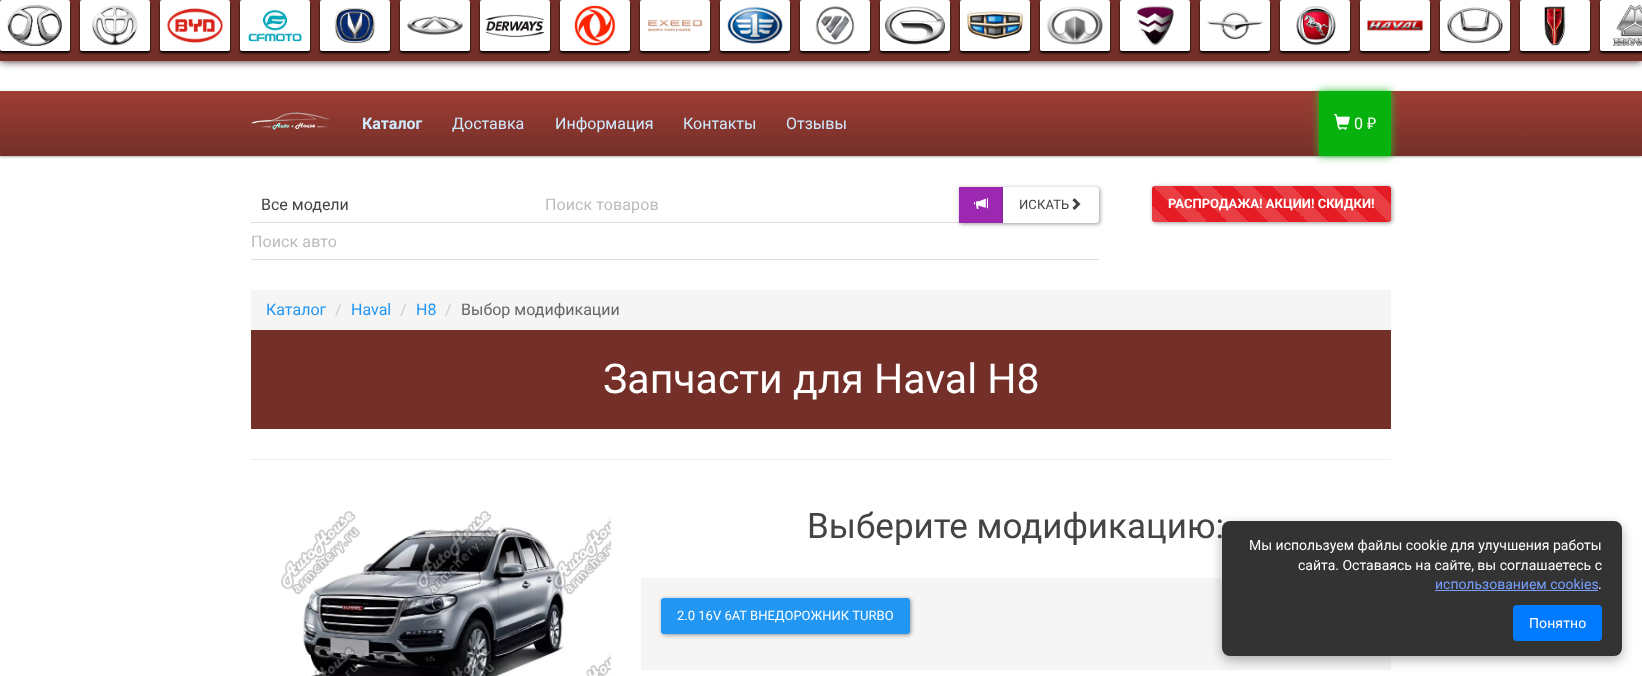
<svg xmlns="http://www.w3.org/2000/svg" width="1642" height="676">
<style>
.a{font:bold 16px Roboto;fill:#d0ebff}
.b{font:16px Roboto;fill:#d0ebff}
.c{font:16px Roboto;fill:#fff}
.d{font:16px Noto Sans;fill:#fff}
.e{font:16px Roboto;fill:#444}
.f{font:16px Roboto;letter-spacing:0.1px;fill:#bbb}
.g{font:13px Roboto;letter-spacing:0.1px;fill:#444}
.h{font:bold 13px Roboto;fill:#fff}
.i{font:16px Roboto;fill:#2196f3}
.j{font:16px Roboto;fill:#ccc}
.k{font:16px Roboto;fill:#666}
.l{font:41px Roboto;fill:#fff}
.m{font:35px Roboto;fill:#444}
.n{font:13px Roboto;fill:#fff}
.o{font:14px Roboto;fill:#fff}
.p{font:14px Roboto;fill:#789fff}
.q{font:14px Roboto;letter-spacing:0.1px;fill:#fff}
</style>
<defs>
<linearGradient id="g1" gradientUnits="userSpaceOnUse" x1="821" y1="156" x2="821" y2="91"><stop offset="0" stop-color="#742f28"/><stop offset="1" stop-color="#9f3e34"/></linearGradient>
<linearGradient id="g2" gradientUnits="userSpaceOnUse" x1="1152" y1="226" x2="1192" y2="186"><stop offset="0.25" stop-color="#fff" stop-opacity="0.15"/><stop offset="0.25" stop-color="#fff" stop-opacity="0"/><stop offset="0.5" stop-color="#fff" stop-opacity="0"/><stop offset="0.5" stop-color="#fff" stop-opacity="0.15"/><stop offset="0.75" stop-color="#fff" stop-opacity="0.15"/><stop offset="0.75" stop-color="#fff" stop-opacity="0"/><stop offset="1" stop-color="#000" stop-opacity="0"/></linearGradient>
<linearGradient id="g3" gradientUnits="userSpaceOnUse" x1="1192" y1="226" x2="1232" y2="186"><stop offset="0.25" stop-color="#e93e44"/><stop offset="0.25" stop-color="#e51c23"/><stop offset="0.5" stop-color="#e51c23"/><stop offset="0.5" stop-color="#e93e44"/><stop offset="0.75" stop-color="#e93e44"/><stop offset="0.75" stop-color="#e51c23"/><stop offset="1" stop-color="#e51c23"/></linearGradient>
<linearGradient id="g4" gradientUnits="userSpaceOnUse" x1="1232" y1="226" x2="1272" y2="186"><stop offset="0.25" stop-color="#e93e44"/><stop offset="0.25" stop-color="#e51c23"/><stop offset="0.5" stop-color="#e51c23"/><stop offset="0.5" stop-color="#e93e44"/><stop offset="0.75" stop-color="#e93e44"/><stop offset="0.75" stop-color="#e51c23"/><stop offset="1" stop-color="#e51c23"/></linearGradient>
<linearGradient id="g5" gradientUnits="userSpaceOnUse" x1="1272" y1="226" x2="1312" y2="186"><stop offset="0.25" stop-color="#e93e44"/><stop offset="0.25" stop-color="#e51c23"/><stop offset="0.5" stop-color="#e51c23"/><stop offset="0.5" stop-color="#e93e44"/><stop offset="0.75" stop-color="#e93e44"/><stop offset="0.75" stop-color="#e51c23"/><stop offset="1" stop-color="#e51c23"/></linearGradient>
<linearGradient id="g6" gradientUnits="userSpaceOnUse" x1="1312" y1="226" x2="1352" y2="186"><stop offset="0.25" stop-color="#e93e44"/><stop offset="0.25" stop-color="#e51c23"/><stop offset="0.5" stop-color="#e51c23"/><stop offset="0.5" stop-color="#e93e44"/><stop offset="0.75" stop-color="#e93e44"/><stop offset="0.75" stop-color="#e51c23"/><stop offset="1" stop-color="#e51c23"/></linearGradient>
<linearGradient id="g7" gradientUnits="userSpaceOnUse" x1="1352" y1="226" x2="1392" y2="186"><stop offset="0.25" stop-color="#fff" stop-opacity="0.15"/><stop offset="0.25" stop-color="#fff" stop-opacity="0"/><stop offset="0.5" stop-color="#fff" stop-opacity="0"/><stop offset="0.5" stop-color="#fff" stop-opacity="0.15"/><stop offset="0.75" stop-color="#fff" stop-opacity="0.15"/><stop offset="0.75" stop-color="#fff" stop-opacity="0"/><stop offset="1" stop-color="#000" stop-opacity="0"/></linearGradient>
</defs>
<rect width="100%" height="100%" fill="#fff"/>
<path fill="#381313" filter="blur(4.5px)" d="M0 -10h1642v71H0z"/>
<rect fill="#999" filter="blur(1px)" y="-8" width="1642" height="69" rx="5"/>
<path fill="#742f28" d="M0 0h1642v61H0z"/>
<rect fill="#000" filter="blur(1px)" y="2" width="70" height="51" rx="2"/>
<rect fill="#fff" width="70" height="51" rx="2"/>
<image href="1.png" x="7" y="5" width="55" height="41"/>
<rect fill="#000" filter="blur(1px)" x="80" y="2" width="70" height="51" rx="2"/>
<rect fill="#fff" x="80" width="70" height="51" rx="2"/>
<image href="2.png" x="92" y="5" width="46" height="41"/>
<rect fill="#000" filter="blur(1px)" x="160" y="2" width="70" height="51" rx="2"/>
<rect fill="#fff" x="160" width="70" height="51" rx="2"/>
<image href="3.png" x="167" y="8" width="57" height="35"/>
<rect fill="#000" filter="blur(1px)" x="240" y="2" width="70" height="51" rx="2"/>
<rect fill="#fff" x="240" width="70" height="51" rx="2"/>
<image href="4.png" x="248" y="10" width="54" height="33"/>
<rect fill="#000" filter="blur(1px)" x="320" y="2" width="70" height="51" rx="2"/>
<rect fill="#fff" x="320" width="70" height="51" rx="2"/>
<image href="5.png" x="334" y="8" width="42" height="36"/>
<rect fill="#000" filter="blur(1px)" x="400" y="2" width="70" height="51" rx="2"/>
<rect fill="#fff" x="400" width="70" height="51" rx="2"/>
<image href="6.png" x="407" y="16" width="56" height="19"/>
<rect fill="#000" filter="blur(1px)" x="480" y="2" width="70" height="51" rx="2"/>
<rect fill="#fff" x="480" width="70" height="51" rx="2"/>
<image href="7.png" x="485" y="14" width="60" height="23"/>
<rect fill="#000" filter="blur(1px)" x="560" y="2" width="70" height="51" rx="2"/>
<rect fill="#fff" x="560" width="70" height="51" rx="2"/>
<image href="8.png" x="573" y="5" width="43" height="41"/>
<rect fill="#000" filter="blur(1px)" x="640" y="2" width="70" height="51" rx="2"/>
<rect fill="#fff" x="640" width="70" height="51" rx="2"/>
<image href="9.png" x="647" y="19" width="56" height="13"/>
<rect fill="#000" filter="blur(1px)" x="720" y="2" width="70" height="51" rx="2"/>
<rect fill="#fff" x="720" width="70" height="51" rx="2"/>
<image href="10.png" x="727" y="6" width="56" height="38"/>
<rect fill="#000" filter="blur(1px)" x="800" y="2" width="70" height="51" rx="2"/>
<rect fill="#fff" x="800" width="70" height="51" rx="2"/>
<image href="11.png" x="815" y="6" width="40" height="39"/>
<rect fill="#000" filter="blur(1px)" x="880" y="2" width="70" height="51" rx="2"/>
<rect fill="#fff" x="880" width="70" height="51" rx="2"/>
<image href="12.png" x="885" y="6" width="60" height="39"/>
<rect fill="#000" filter="blur(1px)" x="960" y="2" width="70" height="51" rx="2"/>
<rect fill="#fff" x="960" width="70" height="51" rx="2"/>
<image href="13.png" x="967" y="11" width="56" height="29"/>
<rect fill="#000" filter="blur(1px)" x="1040" y="2" width="70" height="51" rx="2"/>
<rect fill="#fff" x="1040" width="70" height="51" rx="2"/>
<image href="14.png" x="1047" y="6" width="56" height="39"/>
<rect fill="#000" filter="blur(1px)" x="1120" y="2" width="70" height="51" rx="2"/>
<rect fill="#fff" x="1120" width="70" height="51" rx="2"/>
<image href="15.png" x="1135" y="5" width="39" height="41"/>
<rect fill="#000" filter="blur(1px)" x="1200" y="2" width="70" height="51" rx="2"/>
<rect fill="#fff" x="1200" width="70" height="51" rx="2"/>
<image href="16.png" x="1207" y="11" width="56" height="29"/>
<rect fill="#000" filter="blur(1px)" x="1280" y="2" width="70" height="51" rx="2"/>
<rect fill="#fff" x="1280" width="70" height="51" rx="2"/>
<image href="17.png" x="1296" y="6" width="40" height="40"/>
<rect fill="#000" filter="blur(1px)" x="1360" y="2" width="70" height="51" rx="2"/>
<rect fill="#fff" x="1360" width="70" height="51" rx="2"/>
<image href="18.png" x="1367" y="18" width="57" height="13"/>
<rect fill="#000" filter="blur(1px)" x="1440" y="2" width="70" height="51" rx="2"/>
<rect fill="#fff" x="1440" width="70" height="51" rx="2"/>
<image href="19.png" x="1447" y="7" width="56" height="37"/>
<rect fill="#000" filter="blur(1px)" x="1520" y="2" width="70" height="51" rx="2"/>
<rect fill="#fff" x="1520" width="70" height="51" rx="2"/>
<image href="20.png" x="1544" y="6" width="22" height="40"/>
<rect fill="#000" filter="blur(1px)" x="1600" y="2" width="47" height="51" rx="2"/>
<path fill="#fff" d="M1602 0h40v51h-40c-1 0-2-1-2-2v-47c0-1 1-2 2-2z"/>
<image href="21.png" x="1613" y="5" width="29" height="41"/>
<path fill="#0000004d" filter="blur(1px)" d="M0 92h1642v65H0z"/>
<path fill="url(#g1)" d="M0 91h1642v65H0z"/>
<image href="22.png" x="251" y="112" width="80" height="18"/>
<path fill="#2dc233" filter="blur(4px)" d="M1319 91h72v65H1319z"/>
<path fill="#07b10e" d="M1319 91h72v65H1319z"/>
<image href="23.png" x="1334" y="114" width="16" height="16"/>
<path fill="#ddd" d="M251 222h709v1H251z"/>
<path fill="#00000066" filter="blur(2px)" d="M960 188h45v36H960z"/>
<path fill="#9c27b0" d="M959 187h44v36H959z"/>
<image href="24.png" x="973" y="198" width="15" height="11"/>
<rect fill="#00000066" filter="blur(2px)" x="1004" y="188" width="96" height="36" rx="3"/>
<path fill="#fff" d="M1003 187h93c1.5 0 3 1.5 3 3v30c0 1.5-1.5 3-3 3h-93z"/>
<image href="25.png" x="1072" y="198" width="9" height="12"/>
<path fill="#ddd" d="M251 259h848v1H251z"/>
<rect fill="#00000066" filter="blur(2px)" x="1153" y="187" width="239" height="36" rx="3"/>
<rect fill="#e51c23" x="1152" y="186" width="239" height="36" rx="3"/>
<path fill="url(#g2)" d="M1155 186h37v36h-37c-1.5 0-3-1.5-3-3v-30c0-1.5 1.5-3 3-3z"/>
<path fill="url(#g3)" d="M1192 186h40v36H1192z"/>
<path fill="url(#g4)" d="M1232 186h40v36H1232z"/>
<path fill="url(#g5)" d="M1272 186h40v36H1272z"/>
<path fill="url(#g6)" d="M1312 186h40v36H1312z"/>
<path fill="url(#g7)" d="M1352 186h36c1.5 0 3 1.5 3 3v30c0 1.5-1.5 3-3 3h-36z"/>
<path fill="#f5f5f5" d="M251 290h1140v40H251z"/>
<path fill="#742f28" d="M251 330h1140v99H251z"/>
<path fill="#eee" d="M251 459h1140v1H251z"/>
<image href="26.png" x="281" y="511" width="330" height="165"/>
<path fill="#f5f5f5" d="M641 578h750v92H641z"/>
<rect fill="#00000066" filter="blur(2px)" x="662" y="599" width="249" height="36" rx="3"/>
<rect fill="#2196f3" x="661" y="598" width="249" height="36" rx="3"/>
<rect fill="#0000004d" filter="blur(6px)" x="1222" y="525" width="400" height="135" rx="8"/>
<text class="a" x="362" y="129">Каталог</text>
<text class="b" x="452" y="129">Доставка</text>
<text class="b" x="555" y="129">Информация</text>
<text class="b" x="683" y="129">Контакты</text>
<text class="b" x="786" y="129">Отзывы</text>
<text class="c" x="1354" y="129">0</text>
<text class="d" x="1367" y="129">₽</text>
<text class="e" x="261" y="210">Все модели</text>
<text class="f" x="545" y="210">Поиск товаров</text>
<text class="g" x="1019" y="209">ИСКАТЬ</text>
<text class="f" x="251" y="247">Поиск авто</text>
<text class="h" x="1168" y="208">РАСПРОДАЖА! АКЦИИ! СКИДКИ!</text>
<text class="i" x="266" y="315">Каталог</text>
<text class="j" x="335" y="315">/</text>
<text class="i" x="351" y="315">Haval</text>
<text class="j" x="400" y="315">/</text>
<text class="i" x="416" y="315">H8</text>
<text class="j" x="445" y="315">/</text>
<text class="k" x="461" y="315">Выбор модификации</text>
<text class="l" x="603" y="393">Запчасти для Haval H8</text>
<text class="m" x="807" y="538">Выберите модификацию:</text>
<text class="n" x="677" y="620">2.0 16V 6AT ВНЕДОРОЖНИК TURBO</text>
<rect fill="#333" x="1222" y="521" width="400" height="135" rx="8"/>
<text class="o" x="1249" y="550">Мы используем файлы cookie для улучшения работы</text>
<text class="o" x="1298" y="570">сайта. Оставаясь на сайте, вы соглашаетесь с</text>
<text class="p" x="1435" y="589">использованием cookies</text>
<path fill="#789fff" d="M1435 590h163v1H1435z"/>
<text class="o" x="1598" y="589">.</text>
<rect fill="#007bff" x="1513" y="605" width="89" height="36" rx="4"/>
<text class="q" x="1529" y="628">Понятно</text>
</svg>
